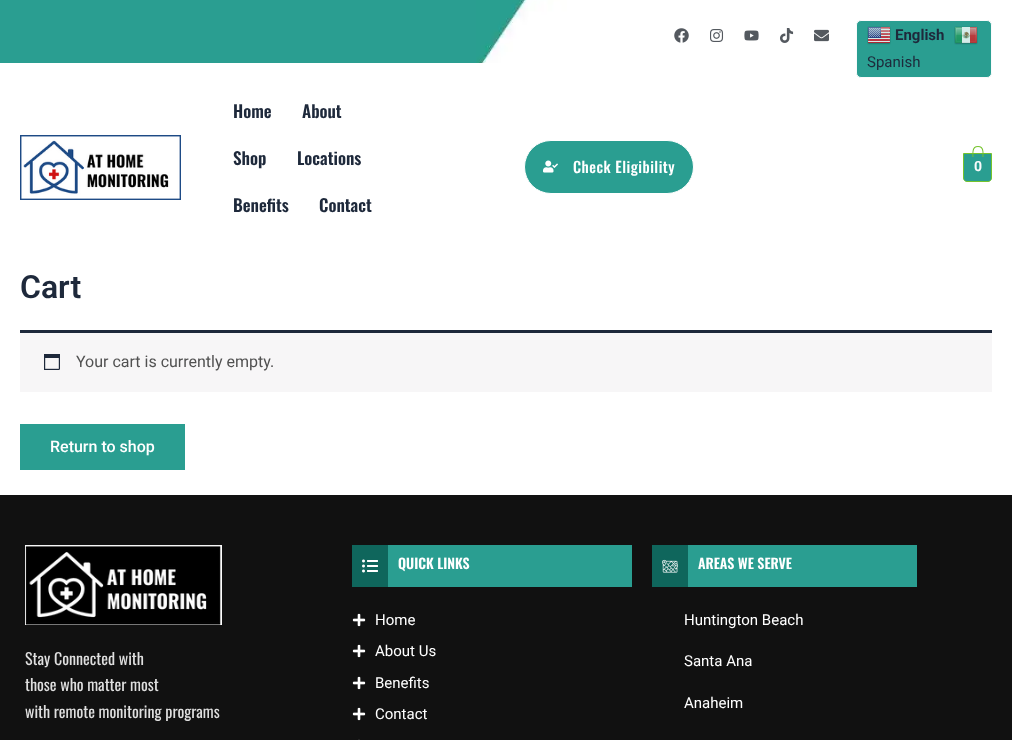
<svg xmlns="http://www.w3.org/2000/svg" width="1012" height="740">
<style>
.a{font:bold 15px Roboto;fill:#1e293b}
.b{font:15px Roboto;fill:#1e293b}
.c{font:600 17px Oswald;fill:#1e293b}
.d{font:500 15px Oswald;letter-spacing:0.5px;fill:#fff}
.e{font:bold 14px Roboto;fill:#f9fafb}
.f{font:600 32px Roboto;fill:#1e293b}
.g{font:16px Roboto;fill:#515151}
.h{font:500 16px Roboto;fill:#fff}
.i{font:16px Oswald;fill:#dfdfdf}
.j{font:600 14px Oswald;fill:#fff}
.k{font:15px Roboto;fill:#fff}
</style>
<rect width="100%" height="100%" fill="#fff"/>
<path fill="#2a9e91" d="M0 0h476v63H0z"/>
<image href="1.png" x="476" y="0" width="536" height="63"/>
<image href="2.png" x="674" y="28" width="15" height="15"/>
<image href="3.png" x="710" y="29" width="14" height="13"/>
<image href="4.png" x="744" y="30" width="15" height="11"/>
<image href="5.png" x="780" y="28" width="14" height="15"/>
<image href="6.png" x="814" y="29" width="15" height="13"/>
<rect fill="#2a9e91" stroke="#f9fafb" x="856.5" y="20.5" width="135" height="57" rx="4.5"/>
<image href="7.png" x="867" y="26" width="24" height="19"/>
<image href="8.png" x="954" y="26" width="24" height="19"/>
<image href="9.png" x="20" y="135" width="161" height="65"/>
<rect fill="#2a9e91" stroke="#fff" x="524.5" y="140.5" width="169" height="53" rx="26.5"/>
<image href="10.png" x="543" y="160" width="15" height="13"/>
<path fill="#2a9e91" stroke="#75c32c" d="M963.5 153.5h28v24.5c0 2-1.5 3.5-3.5 3.5h-21c-2 0-3.5-1.5-3.5-3.5z"/>
<path fill="#75c32c" fill-rule="evenodd" d="M978 146c6.5 0 5.5 6.5 5.5 11h-11c0-4.5-1-11 5.5-11zm0 1c5.5 0 4.5 6.5 4.5 10h-9c0-3.5-1-10 4.5-10z"/>
<path fill="#f7f6f7" d="M20 333h972v59H20z"/>
<path fill="#1e293b" d="M20 330h972v3H20z"/>
<image href="11.png" x="44" y="354" width="16" height="16"/>
<path fill="#2a9e91" d="M20 424h165v46H20z"/>
<path fill="#111" d="M0 495h1012v245H0z"/>
<image href="12.png" x="25" y="545" width="197" height="80"/>
<path fill="#2a9e91" d="M388 545h244v42H388z"/>
<path fill="#0f665c" d="M352 545h36v42H352z"/>
<image href="13.png" x="362" y="559" width="16" height="14"/>
<image href="14.png" x="352" y="613" width="14" height="14"/>
<image href="14.png" x="352" y="644" width="14" height="14"/>
<image href="14.png" x="352" y="676" width="14" height="14"/>
<image href="14.png" x="352" y="707" width="14" height="14"/>
<path fill="#242424" d="M358 739h2v1H358z"/>
<path fill="#2a9e91" d="M688 545h229v42H688z"/>
<path fill="#0f665c" d="M652 545h36v42H652z"/>
<image href="15.png" x="662" y="559" width="16" height="14"/>
<text class="a" x="895" y="40">English</text>
<text class="b" x="867" y="67">Spanish</text>
<text class="c" x="233" y="118">Home</text>
<text class="c" x="302" y="118">About</text>
<text class="c" x="233" y="165">Shop</text>
<text class="c" x="297" y="165">Locations</text>
<text class="c" x="233" y="212">Benefits</text>
<text class="c" x="319" y="212">Contact</text>
<text class="d" x="573" y="173">Check Eligibility</text>
<text class="e" x="974" y="171">0</text>
<text class="f" x="20" y="298">Cart</text>
<text class="g" x="76" y="367">Your cart is currently empty.</text>
<text class="h" x="50" y="452">Return to shop</text>
<text class="i" x="25" y="665">Stay Connected with</text>
<text class="i" x="25" y="691">those who matter most</text>
<text class="i" x="25" y="718">with remote monitoring programs</text>
<text class="j" x="398" y="569">QUICK LINKS</text>
<text class="k" x="375" y="625">Home</text>
<text class="k" x="375" y="656">About Us</text>
<text class="k" x="375" y="688">Benefits</text>
<text class="k" x="375" y="719">Contact</text>
<text class="j" x="698" y="569">AREAS WE SERVE</text>
<text class="k" x="684" y="625">Huntington Beach</text>
<text class="k" x="684" y="666">Santa Ana</text>
<text class="k" x="684" y="708">Anaheim</text>
</svg>
